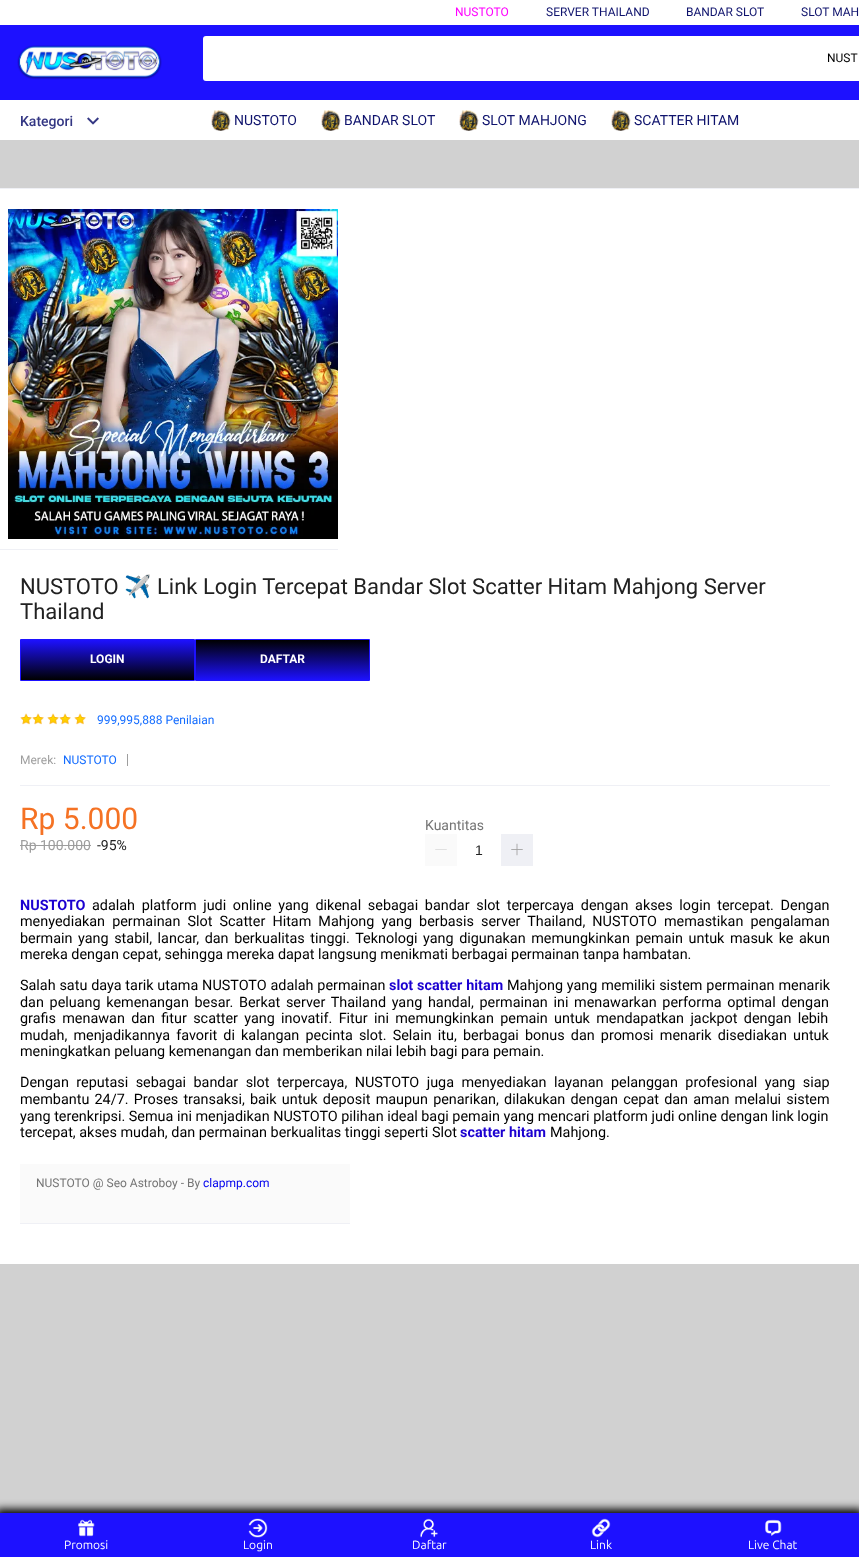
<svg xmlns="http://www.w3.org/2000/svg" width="859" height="1557">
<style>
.a{font:12px Roboto;fill:#f0f}
.b{font:12px Roboto;fill:#0f136d}
.c{font:12px Roboto;fill:#000}
.d{font:500 14px Roboto;fill:#333683}
.e{font:14px Roboto;fill:#0f136d}
.f{font:22px Roboto;fill:#212121}
.g{font:22px Noto Color Emoji;fill:#212121}
.h{font:bold 12px Roboto;fill:#fff}
.i{font:12px Roboto;fill:#136cff}
.j{font:12px Roboto;fill:#9e9e9e}
.k{font:30px Roboto;fill:#f57224}
.l{font:14px Roboto;fill:#9e9e9e}
.m{font:14px Roboto;fill:#212121}
.n{font:14px Roboto;fill:#757575}
.o{font:14px Liberation Sans;fill:#212121}
.p{font:bold 14.4px Roboto;fill:#1b00d0}
.q{font:14.4px Roboto;fill:#000}
.r{font:12px Roboto;fill:#757575}
.s{font:12px Roboto;fill:#00e}
.t{font:12px Ubuntu;fill:#fff}
</style>
<defs>
<linearGradient id="g1" gradientUnits="userSpaceOnUse" x1="108" y1="640" x2="108" y2="680"><stop offset="0" stop-color="#1d11ff"/><stop offset="1" stop-color="#000"/></linearGradient>
<linearGradient id="g2" gradientUnits="userSpaceOnUse" x1="283" y1="640" x2="283" y2="680"><stop offset="0" stop-color="#000"/><stop offset="1" stop-color="#1d11ff"/></linearGradient>
</defs>
<rect width="100%" height="100%" fill="#d1d1d1"/>
<path fill="#fff" d="M0 0h859v140H0z"/>
<path fill="#1d11ff" d="M0 25h859v75H0z"/>
<image href="1.png" x="17" y="45" width="145" height="35"/>
<rect fill="#fff" x="203" y="36" width="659" height="45" rx="3"/>
<image href="2.png" x="87" y="117" width="12" height="8"/>
<image href="3.png" x="211" y="110" width="20" height="21"/>
<image href="4.png" x="321" y="110" width="20" height="21"/>
<image href="4.png" x="459" y="110" width="20" height="21"/>
<image href="4.png" x="611" y="110" width="20" height="21"/>
<path fill="#eff0f5" d="M0 188h859v1H0z"/>
<path fill="#fff" d="M0 189h859v1075H0z"/>
<path fill="#eff0f5" d="M0 549h338v1H0z"/>
<image href="5.png" x="8" y="209" width="330" height="330"/>
<path fill="url(#g1)" d="M21 640h173v40H21z"/>
<path fill="none" stroke="#1d11ff" d="M20.5 639.5h174v41H20.5z"/>
<path fill="url(#g2)" d="M196 640h173v40H196z"/>
<path fill="none" stroke="#1d11ff" d="M195.5 639.5h174v41H195.5z"/>
<image href="6.png" x="20" y="713" width="12" height="12"/>
<image href="6.png" x="32" y="713" width="12" height="12"/>
<image href="6.png" x="47" y="713" width="12" height="12"/>
<image href="6.png" x="59" y="713" width="12" height="12"/>
<image href="6.png" x="74" y="713" width="12" height="12"/>
<path fill="#eff0f5" d="M20 785h810v1H20z"/>
<path fill="#9e9e9e" d="M127 754h1v12H127z"/>
<path fill="#9e9e9e" d="M20 845h71v1H20z"/>
<path fill="#fafafa" d="M425 834h32v32H425z"/>
<image href="7.png" x="435" y="849" width="12" height="1"/>
<path fill="#eff0f5" d="M501 834h32v32H501z"/>
<image href="8.png" x="511" y="843" width="12" height="13"/>
<path fill="#fafafa" d="M20 1164h330v59H20z"/>
<path fill="#eff0f5" d="M20 1223h330v1H20z"/>
<path fill="#000" filter="blur(4px)" d="M-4 1509h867v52H-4z"/>
<path fill="#1d11ff" d="M0 1513h859v44H0z"/>
<image href="9.png" x="78" y="1519" width="17" height="18"/>
<image href="10.png" x="248" y="1518" width="20" height="20"/>
<image href="11.png" x="420" y="1518" width="18" height="20"/>
<image href="12.png" x="591" y="1518" width="20" height="20"/>
<image href="13.png" x="765" y="1519" width="17" height="17"/>
<text class="a" x="455" y="16">NUSTOTO</text>
<text class="b" x="546" y="16">SERVER THAILAND</text>
<text class="b" x="686" y="16">BANDAR SLOT</text>
<text class="b" x="801" y="16">SLOT MAH</text>
<text class="c" x="827" y="62">NUST</text>
<text class="d" x="20" y="126">Kategori</text>
<text class="e" x="234" y="125">NUSTOTO</text>
<text class="e" x="344" y="125">BANDAR SLOT</text>
<text class="e" x="482" y="125">SLOT MAHJONG</text>
<text class="e" x="634" y="125">SCATTER HITAM</text>
<text class="f" x="20" y="594">NUSTOTO</text>
<text class="g" x="124" y="594">✈️</text>
<text class="f" x="157" y="594">Link Login Tercepat Bandar Slot Scatter Hitam Mahjong Server</text>
<text class="f" x="20" y="619">Thailand</text>
<text class="h" x="90" y="663">LOGIN</text>
<text class="h" x="260" y="663">DAFTAR</text>
<text class="i" x="97" y="724">999,995,888 Penilaian</text>
<text class="j" x="20" y="764">Merek:</text>
<text class="i" x="63" y="764">NUSTOTO</text>
<text class="k" x="20" y="829">Rp 5.000</text>
<text class="l" x="20" y="850">Rp 100.000</text>
<text class="m" x="97" y="850">-95%</text>
<text class="n" x="425" y="830">Kuantitas</text>
<text class="o" x="475" y="855">1</text>
<text class="p" x="20" y="910">NUSTOTO</text>
<text class="q" x="92" y="910" word-spacing="3.1">adalah platform judi online yang dikenal sebagai bandar slot terpercaya dengan akses login tercepat. Dengan</text>
<text class="q" x="20" y="926" word-spacing="3.5">menyediakan permainan Slot Scatter Hitam Mahjong yang berbasis server Thailand, NUSTOTO memastikan pengalaman</text>
<text class="q" x="20" y="943" word-spacing="2">bermain yang stabil, lancar, dan berkualitas tinggi. Teknologi yang digunakan memungkinkan pemain untuk masuk ke akun</text>
<text class="q" x="20" y="959">mereka dengan cepat, sehingga mereka dapat langsung menikmati berbagai permainan tanpa hambatan.</text>
<text class="q" x="20" y="990" word-spacing="0.25">Salah satu daya tarik utama NUSTOTO adalah permainan</text>
<text class="p" x="389" y="990" word-spacing="0.25">slot scatter hitam</text>
<text class="q" x="507" y="990" word-spacing="0.25">Mahjong yang memiliki sistem permainan menarik</text>
<text class="q" x="20" y="1007" word-spacing="2.1">dan peluang kemenangan besar. Berkat server Thailand yang handal, permainan ini menawarkan performa optimal dengan</text>
<text class="q" x="20" y="1023" word-spacing="2.75">grafis menawan dan fitur scatter yang inovatif. Fitur ini memungkinkan pemain untuk mendapatkan jackpot dengan lebih</text>
<text class="q" x="20" y="1040" word-spacing="2.6">mudah, menjadikannya favorit di kalangan pecinta slot. Selain itu, berbagai bonus dan promosi menarik disediakan untuk</text>
<text class="q" x="20" y="1056">meningkatkan peluang kemenangan dan memberikan nilai lebih bagi para pemain.</text>
<text class="q" x="20" y="1087" word-spacing="3.9">Dengan reputasi sebagai bandar slot terpercaya, NUSTOTO juga menyediakan layanan pelanggan profesional yang siap</text>
<text class="q" x="20" y="1104" word-spacing="1.6">membantu 24/7. Proses transaksi, baik untuk deposit maupun penarikan, dilakukan dengan cepat dan aman melalui sistem</text>
<text class="q" x="20" y="1121">yang terenkripsi. Semua ini menjadikan NUSTOTO pilihan ideal bagi pemain yang mencari platform judi online dengan link login</text>
<text class="q" x="20" y="1137">tercepat, akses mudah, dan permainan berkualitas tinggi seperti Slot</text>
<text class="p" x="460" y="1137">scatter hitam</text>
<text class="q" x="550" y="1137">Mahjong.</text>
<text class="r" x="36" y="1187">NUSTOTO @ Seo Astroboy - By</text>
<text class="s" x="203" y="1187">clapmp.com</text>
<text class="t" x="64" y="1549">Promosi</text>
<text class="t" x="243" y="1549">Login</text>
<text class="t" x="412" y="1549">Daftar</text>
<text class="t" x="590" y="1549">Link</text>
<text class="t" x="748" y="1549">Live Chat</text>
</svg>
